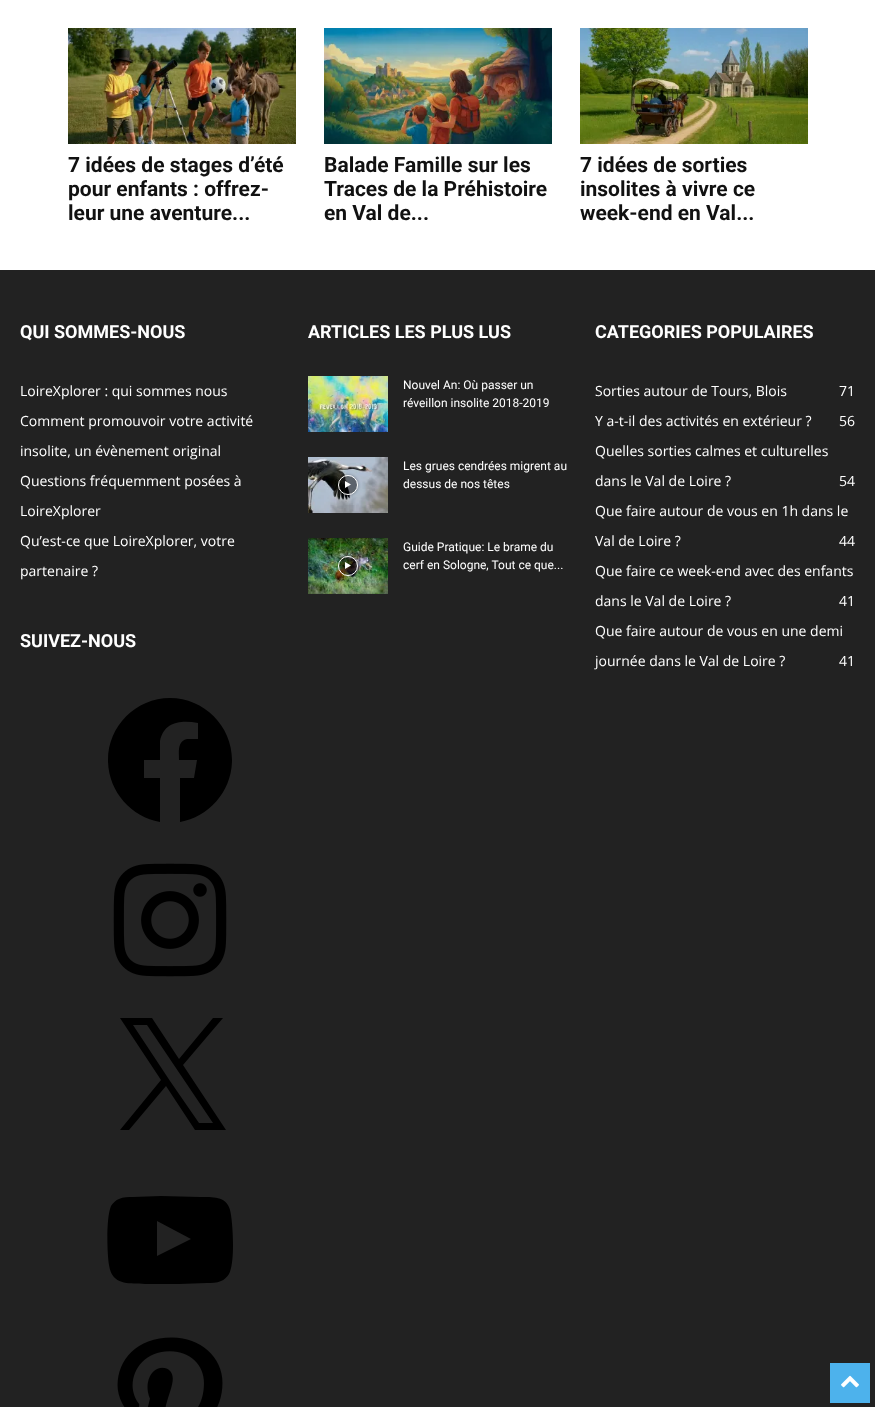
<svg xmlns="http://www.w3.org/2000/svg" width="875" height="1407">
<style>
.a{font:bold 21px Roboto;fill:#111}
.b{font:bold 18px Roboto;fill:#fff}
.c{font:14px Open Sans;fill:#fff}
.d{font:12px Roboto;fill:#fff}
</style>
<defs>
<clipPath id="clip1"><path d="M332 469h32v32h-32zm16 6c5.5 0 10 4.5 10 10c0 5.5-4.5 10-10 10c-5.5 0-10-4.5-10-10c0-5.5 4.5-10 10-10z" clip-rule="evenodd"/></clipPath>
<clipPath id="clip2"><path d="M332 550h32v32h-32zm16 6c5.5 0 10 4.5 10 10c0 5.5-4.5 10-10 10c-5.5 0-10-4.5-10-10c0-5.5 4.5-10 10-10z" clip-rule="evenodd"/></clipPath>
</defs>
<rect width="100%" height="100%" fill="#fff"/>
<image href="1.png" x="68" y="28" width="228" height="116"/>
<image href="2.png" x="324" y="28" width="228" height="116"/>
<image href="3.png" x="580" y="28" width="228" height="116"/>
<path fill="#222" d="M0 270h875v1137H0z"/>
<path fill="#000" d="M170 698c-34 0-62 28-62 62c0 31 23 57 52 62v-44h-16v-18h16v-19c4-20 22-21 38-18v16h-11c-10 2-8 14-8 21h18l-3 18h-14v44c29-5 52-31 52-62c0-34-28-62-62-62z"/>
<image href="4.png" x="113" y="863" width="114" height="114"/>
<path fill="#000" d="M183 1065l40-47h-10l-34 41l-27-41h-32l41 62l-41 50h9l37-44l29 44h31zm-13 16l-37-56h14l66 98h-14z"/>
<path fill="#000" d="M231 1215c-2-19-16-18-31-18l-39-1l-28 1c-4 0-10 0-14 2c-3 1-6 4-8 7c-5 12-4 46-2 59c3 21 20 18 36 19h34l28-1c4 0 10 0 14-2c3-1 6-4 8-7c6-12 4-46 2-59zm-74 41v-35l34 18z"/>
<image href="5.png" x="117" y="1337" width="106" height="70"/>
<image href="6.png" x="308" y="376" width="80" height="56"/>
<image href="7.png" x="308" y="457" width="80" height="56"/>
<g clip-path="url(#clip1)">
<rect fill="#00000066" filter="blur(1.5px)" x="338" y="475" width="20" height="20" rx="10"/>
</g>
<circle fill="#0000007a" stroke="#fff" cx="348" cy="485" r="9.5"/>
<path fill="#fff" d="M345 481v7l6-3.5z"/>
<image href="8.png" x="308" y="538" width="80" height="56"/>
<g clip-path="url(#clip2)">
<rect fill="#00000066" filter="blur(1.5px)" x="338" y="556" width="20" height="20" rx="10"/>
</g>
<circle fill="#0000007a" stroke="#fff" cx="348" cy="566" r="9.5"/>
<path fill="#fff" d="M345 562v7l6-3.5z"/>
<path fill="#4db2ec" d="M830 1363h40v40H830z"/>
<image href="9.png" x="841" y="1375" width="18" height="13"/>
<text class="a" x="68" y="172">7 idées de stages d’été</text>
<text class="a" x="68" y="196">pour enfants : offrez-</text>
<text class="a" x="68" y="220">leur une aventure...</text>
<text class="a" x="324" y="172">Balade Famille sur les</text>
<text class="a" x="324" y="196">Traces de la Préhistoire</text>
<text class="a" x="324" y="220">en Val de...</text>
<text class="a" x="580" y="172">7 idées de sorties</text>
<text class="a" x="580" y="196">insolites à vivre ce</text>
<text class="a" x="580" y="220">week-end en Val...</text>
<text class="b" x="20" y="338">QUI SOMMES-NOUS</text>
<text class="c" x="20" y="396">LoireXplorer : qui sommes nous</text>
<text class="c" x="20" y="426">Comment promouvoir votre activité</text>
<text class="c" x="20" y="456">insolite, un évènement original</text>
<text class="c" x="20" y="486">Questions fréquemment posées à</text>
<text class="c" x="20" y="516">LoireXplorer</text>
<text class="c" x="20" y="546">Qu’est-ce que LoireXplorer, votre</text>
<text class="c" x="20" y="576">partenaire ?</text>
<text class="b" x="20" y="647">SUIVEZ-NOUS</text>
<text class="b" x="308" y="338">ARTICLES LES PLUS LUS</text>
<text class="d" x="403" y="389">Nouvel An: Où passer un</text>
<text class="d" x="403" y="407">réveillon insolite 2018-2019</text>
<text class="d" x="403" y="470">Les grues cendrées migrent au</text>
<text class="d" x="403" y="488">dessus de nos têtes</text>
<text class="d" x="403" y="551">Guide Pratique: Le brame du</text>
<text class="d" x="403" y="569">cerf en Sologne, Tout ce que...</text>
<text class="b" x="595" y="338">CATEGORIES POPULAIRES</text>
<text class="c" x="595" y="396">Sorties autour de Tours, Blois</text>
<text class="c" x="839" y="396">71</text>
<text class="c" x="595" y="426">Y a-t-il des activités en extérieur ?</text>
<text class="c" x="839" y="426">56</text>
<text class="c" x="595" y="456">Quelles sorties calmes et culturelles</text>
<text class="c" x="595" y="486">dans le Val de Loire ?</text>
<text class="c" x="839" y="486">54</text>
<text class="c" x="595" y="516">Que faire autour de vous en 1h dans le</text>
<text class="c" x="595" y="546">Val de Loire ?</text>
<text class="c" x="839" y="546">44</text>
<text class="c" x="595" y="576">Que faire ce week-end avec des enfants</text>
<text class="c" x="595" y="606">dans le Val de Loire ?</text>
<text class="c" x="839" y="606">41</text>
<text class="c" x="595" y="636">Que faire autour de vous en une demi</text>
<text class="c" x="595" y="666">journée dans le Val de Loire ?</text>
<text class="c" x="839" y="666">41</text>
</svg>
